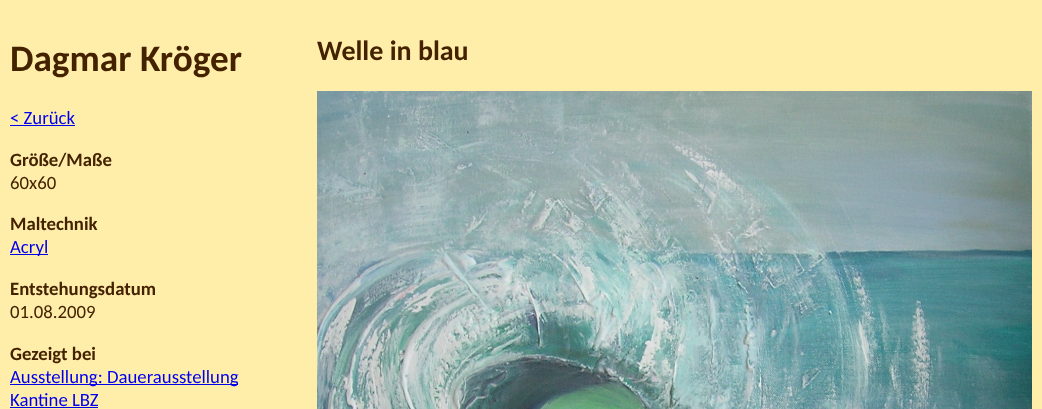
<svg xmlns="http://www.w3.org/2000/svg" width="1042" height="409">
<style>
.a{font:bold 37.25px Carlito;fill:#420}
.b{font:18.75px Carlito;fill:#00e}
.c{font:bold 18.75px Carlito;fill:#420}
.d{font:18.75px Carlito;fill:#420}
.e{font:bold 28px Carlito;fill:#420}
</style>
<rect width="100%" height="100%" fill="#fea"/>
<path fill="#00e" d="M10 125h65v1H10z"/>
<path fill="#00e" d="M10 254h38v1H10z"/>
<path fill="#00e" d="M10 384h228v1H10z"/>
<path fill="#00e" d="M10 407h88v1H10z"/>
<image href="1.png" x="317" y="91" width="715" height="318"/>
<text class="a" x="10" y="71">Dagmar Kröger</text>
<text class="b" x="10" y="124">&lt; Zurück</text>
<text class="c" x="10" y="166">Größe/Maße</text>
<text class="d" x="10" y="189">60x60</text>
<text class="c" x="10" y="230">Maltechnik</text>
<text class="b" x="10" y="253">Acryl</text>
<text class="c" x="10" y="295">Entstehungsdatum</text>
<text class="d" x="10" y="318">01.08.2009</text>
<text class="c" x="10" y="360">Gezeigt bei</text>
<text class="b" x="10" y="383">Ausstellung: Dauerausstellung</text>
<text class="b" x="10" y="406">Kantine LBZ</text>
<text class="e" x="317" y="60">Welle in blau</text>
</svg>
